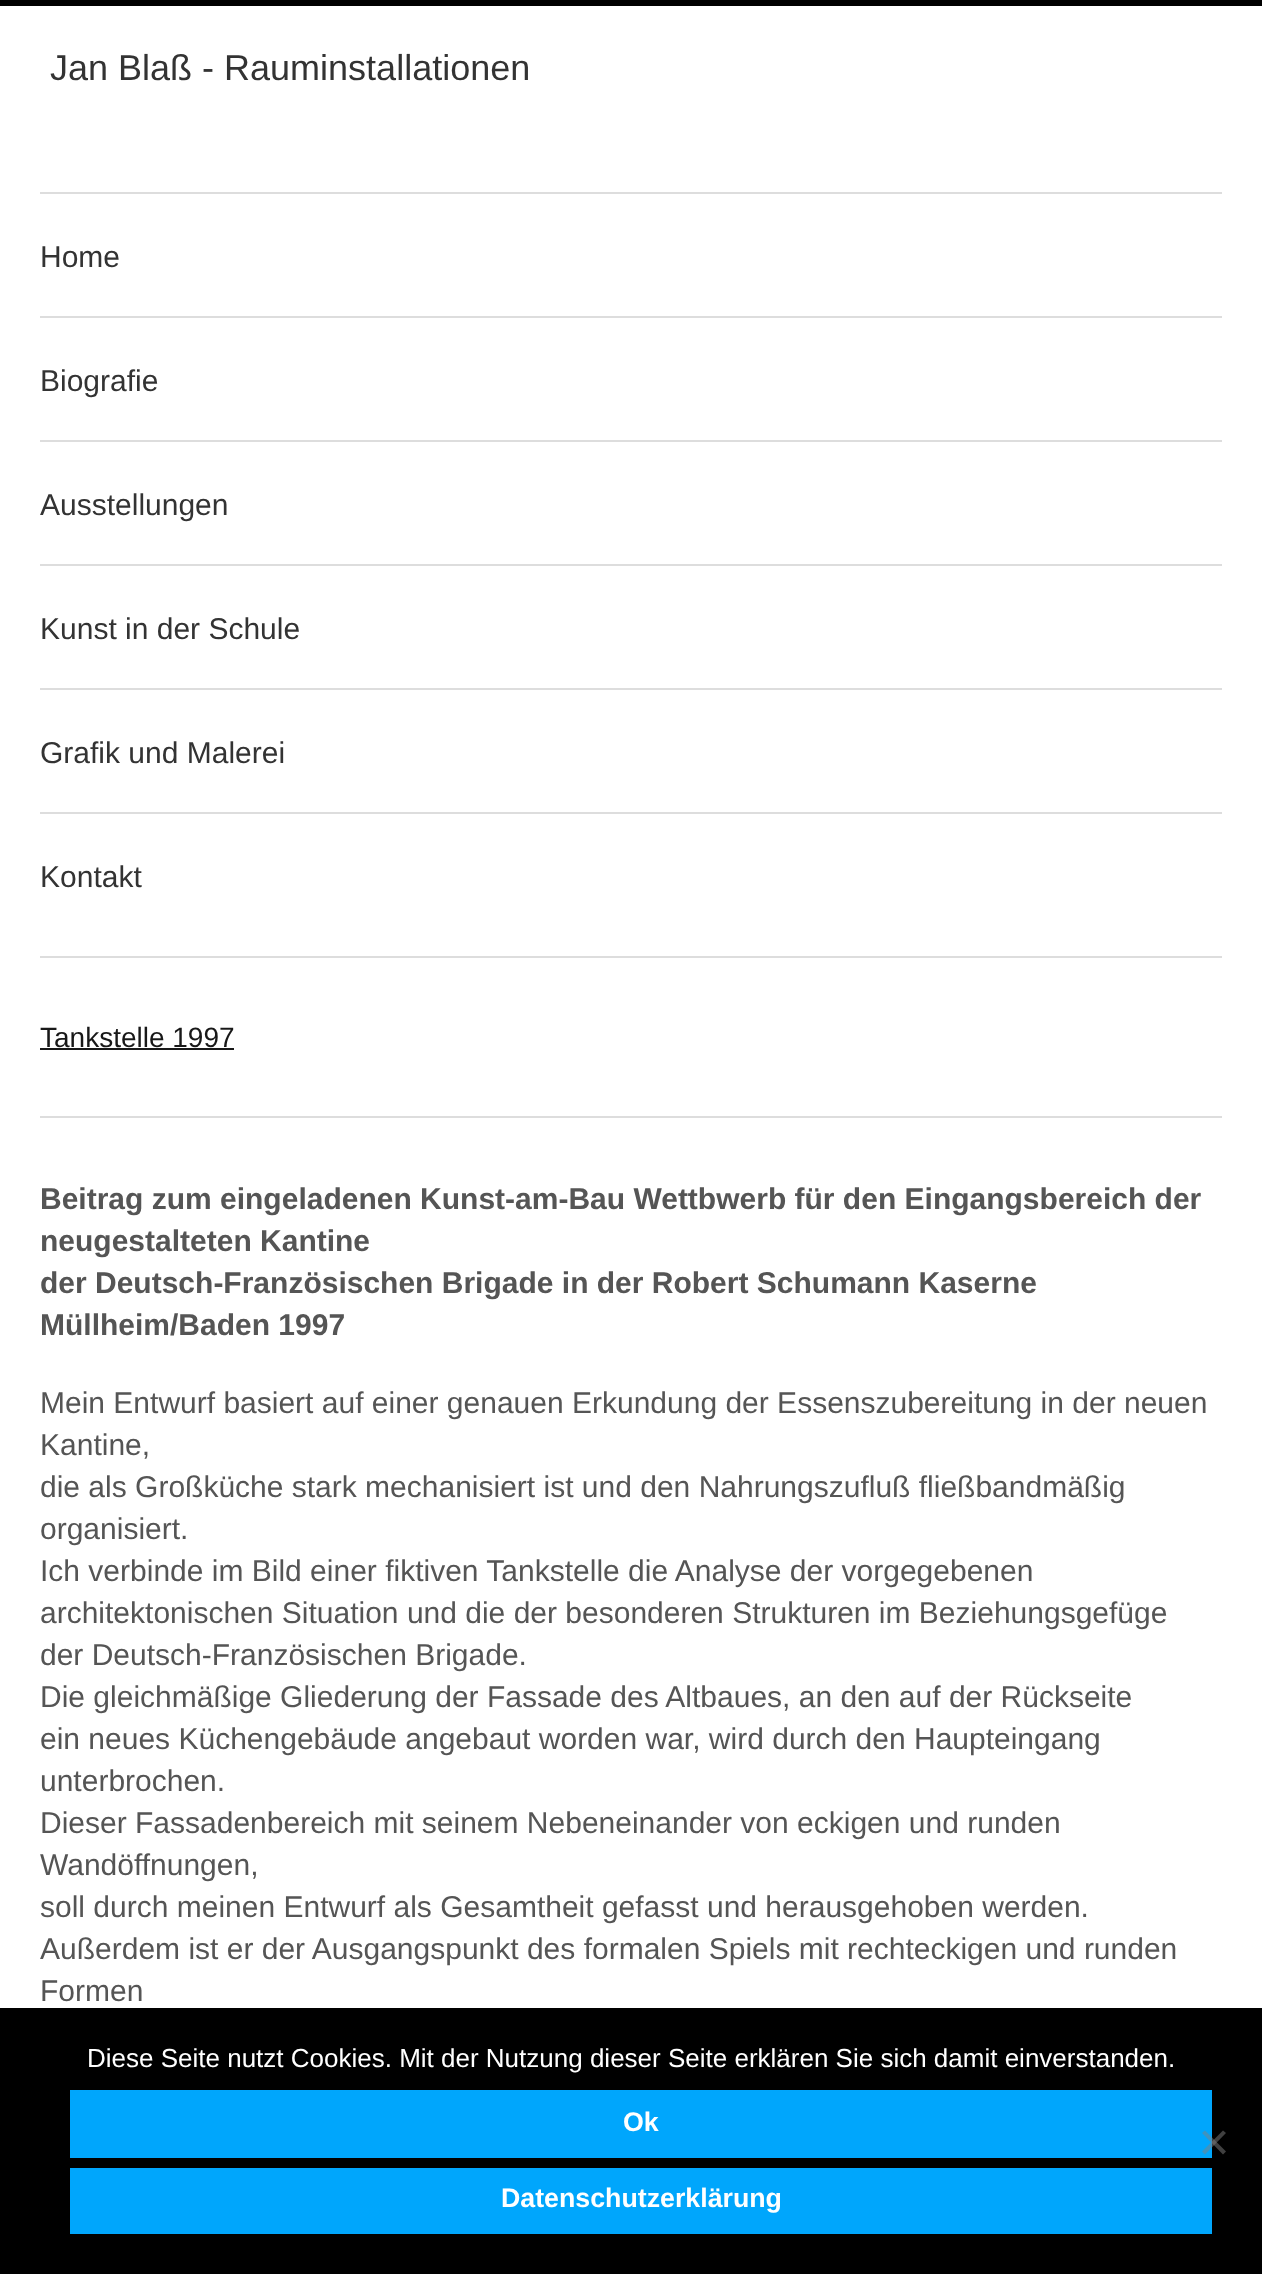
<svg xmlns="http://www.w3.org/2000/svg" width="1262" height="2274">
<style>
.a{font:36px Liberation Sans;fill:#333}
.b{font:30px Liberation Sans;fill:#333}
.c{font:28px Liberation Sans;fill:#181818}
.d{font:bold 30px Liberation Sans;fill:#555}
.e{font:30px Liberation Sans;fill:#555}
.f{font:26px Liberation Sans;fill:#fff}
.g{font:bold 26.75px Liberation Sans;fill:#fff}
</style>
<rect width="100%" height="100%" fill="#fff"/>
<path fill="#000" d="M0 0h1262v6H0z"/>
<path fill="#ddd" d="M40 192h1182v2H40z"/>
<path fill="#ddd" d="M40 316h1182v2H40z"/>
<path fill="#ddd" d="M40 440h1182v2H40z"/>
<path fill="#ddd" d="M40 564h1182v2H40z"/>
<path fill="#ddd" d="M40 688h1182v2H40z"/>
<path fill="#ddd" d="M40 812h1182v2H40z"/>
<path fill="#ddd" d="M40 956h1182v2H40z"/>
<path fill="#ddd" d="M40 1116h1182v2H40z"/>
<path fill="#181818" d="M40 1048h194v2H40z"/>
<path fill="#000" d="M0 2008h1262v266H0z"/>
<path fill="#00a6fc" d="M70 2090h1142v68H70z"/>
<path fill="#00a6fc" d="M70 2168h1142v66H70z"/>
<path fill="#80808080" d="M1223 2130.5l3 2.5l-21 21.5l-3-3z"/>
<path fill="#80808080" d="M1202 2133l3-2.5l21 21l-3 3z"/>
<text class="a" x="50" y="80">Jan Blaß - Rauminstallationen</text>
<text class="b" x="40" y="267">Home</text>
<text class="b" x="40" y="391">Biografie</text>
<text class="b" x="40" y="515">Ausstellungen</text>
<text class="b" x="40" y="639">Kunst in der Schule</text>
<text class="b" x="40" y="763">Grafik und Malerei</text>
<text class="b" x="40" y="887">Kontakt</text>
<text class="c" x="40" y="1047">Tankstelle 1997</text>
<text class="d" x="40" y="1209">Beitrag zum eingeladenen Kunst-am-Bau Wettbwerb für den Eingangsbereich der</text>
<text class="d" x="40" y="1251">neugestalteten Kantine</text>
<text class="d" x="40" y="1293">der Deutsch-Französischen Brigade in der Robert Schumann Kaserne</text>
<text class="d" x="40" y="1335">Müllheim/Baden 1997</text>
<text class="e" x="40" y="1413">Mein Entwurf basiert auf einer genauen Erkundung der Essenszubereitung in der neuen</text>
<text class="e" x="40" y="1455">Kantine,</text>
<text class="e" x="40" y="1497">die als Großküche stark mechanisiert ist und den Nahrungszufluß fließbandmäßig</text>
<text class="e" x="40" y="1539">organisiert.</text>
<text class="e" x="40" y="1581">Ich verbinde im Bild einer fiktiven Tankstelle die Analyse der vorgegebenen</text>
<text class="e" x="40" y="1623">architektonischen Situation und die der besonderen Strukturen im Beziehungsgefüge</text>
<text class="e" x="40" y="1665">der Deutsch-Französischen Brigade.</text>
<text class="e" x="40" y="1707">Die gleichmäßige Gliederung der Fassade des Altbaues, an den auf der Rückseite</text>
<text class="e" x="40" y="1749">ein neues Küchengebäude angebaut worden war, wird durch den Haupteingang</text>
<text class="e" x="40" y="1791">unterbrochen.</text>
<text class="e" x="40" y="1833">Dieser Fassadenbereich mit seinem Nebeneinander von eckigen und runden</text>
<text class="e" x="40" y="1875">Wandöffnungen,</text>
<text class="e" x="40" y="1917">soll durch meinen Entwurf als Gesamtheit gefasst und herausgehoben werden.</text>
<text class="e" x="40" y="1959">Außerdem ist er der Ausgangspunkt des formalen Spiels mit rechteckigen und runden</text>
<text class="e" x="40" y="2001">Formen</text>
<text class="f" x="87" y="2067">Diese Seite nutzt Cookies. Mit der Nutzung dieser Seite erklären Sie sich damit einverstanden.</text>
<text class="g" x="623" y="2131">Ok</text>
<text class="g" x="501" y="2207">Datenschutzerklärung</text>
</svg>
